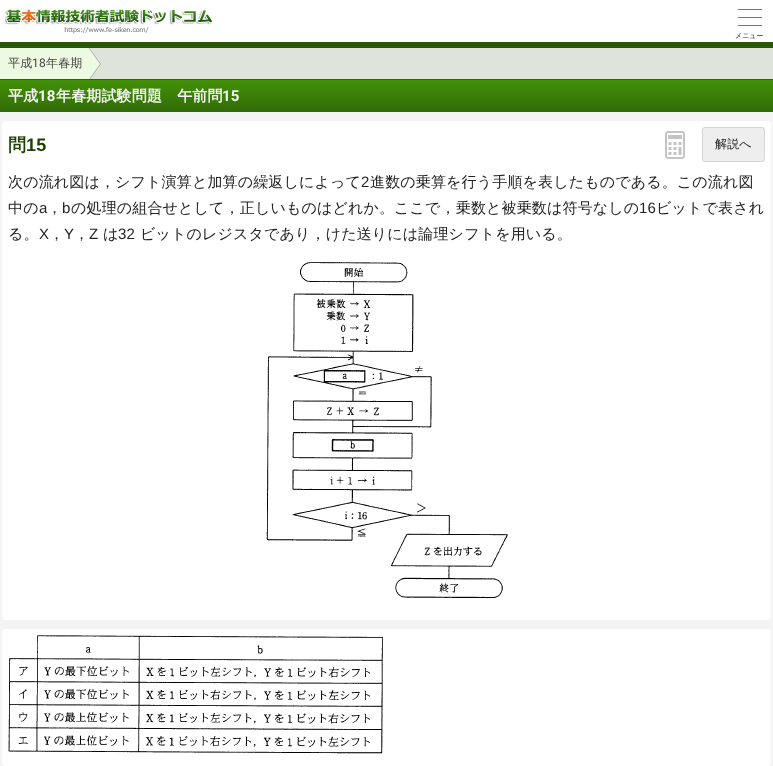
<svg xmlns="http://www.w3.org/2000/svg" width="773" height="766">
<style>
.a{font:500 7px WenQuanYi Zen Hei;fill:#222225}
.b{font:500 12px WenQuanYi Zen Hei;letter-spacing:0.15px;fill:#444}
.c{font:12px Roboto;letter-spacing:0.15px;fill:#444}
.d{font:bold 15px WenQuanYi Zen Hei;letter-spacing:0.15px;fill:#f3f3f3}
.e{font:bold 15px Roboto;letter-spacing:0.15px;fill:#f3f3f3}
.f{font:bold 18px WenQuanYi Zen Hei;letter-spacing:0.15px;fill:#1d3f03}
.g{font:bold 18px Liberation Sans;letter-spacing:0.15px;fill:#1d3f03}
.h{font:500 12px WenQuanYi Zen Hei;letter-spacing:0.15px;fill:#222225}
.i{font:500 15px WenQuanYi Zen Hei;letter-spacing:0.15px;fill:#222225}
.j{font:15px Liberation Sans;letter-spacing:0.15px;fill:#222225}
</style>
<defs>
<clipPath id="clip1"><path d="M0 48h773v31H0z"/></clipPath>
<linearGradient id="g1" gradientUnits="userSpaceOnUse" x1="387" y1="80" x2="387" y2="112"><stop offset="0" stop-color="#439108"/><stop offset="1" stop-color="#316b06"/></linearGradient>
</defs>
<rect width="100%" height="100%" fill="#f4f4f4"/>
<path fill="#fff" d="M0 0h773v42H0z"/>
<path fill="#285705" d="M0 42h773v6H0z"/>
<image href="1.png" x="5" y="9" width="208" height="25"/>
<path fill="#777" d="M738 9h24v1H738z"/>
<path fill="#777" d="M738 17h24v1H738z"/>
<path fill="#777" d="M738 25h24v1H738z"/>
<path fill="#dfe4db" d="M89 48h684v31H89z"/>
<path fill="#ebfae1" d="M0 48h82v31H0z"/>
<g clip-path="url(#clip1)">
<path fill="#b0b2ae" d="M83 89v-50l18 25z"/>
<path fill="#ebfae1" d="M82 89v-50l18 25z"/>
</g>
<path fill="url(#g1)" d="M0 80h773v32H0z"/>
<path fill="#2e6307" d="M0 79h773v1H0z"/>
<rect fill="#fff" x="2" y="121" width="769" height="499" rx="4"/>
<image href="2.png" x="665" y="131" width="20" height="28"/>
<rect fill="#eee" x="702" y="127" width="63" height="35" rx="3"/>
<rect fill="none" stroke="#0000001a" x="702.5" y="127.5" width="62" height="34" rx="2.5"/>
<image href="3.png" x="266" y="262" width="242" height="337"/>
<rect fill="#fff" x="2" y="629" width="769" height="137" rx="4"/>
<image href="4.png" x="8" y="635" width="375" height="119"/>
<text class="a" x="735" y="38">メニュー</text>
<text class="b" x="8" y="67">平成</text>
<text class="c" x="32" y="67">18</text>
<text class="b" x="46" y="67">年春期</text>
<text class="d" x="8" y="101">平成</text>
<text class="e" x="38" y="101">18</text>
<text class="d" x="56" y="101">年春期試験問題　午前問</text>
<text class="e" x="222" y="101">15</text>
<text class="f" x="8" y="151">問</text>
<text class="g" x="26" y="151">15</text>
<text class="h" x="715" y="148">解説へ</text>
<text class="i" x="8" y="187">次の流れ図は，シフト演算と加算の繰返しによって</text>
<text class="j" x="361" y="187">2</text>
<text class="i" x="370" y="187">進数の乗算を行う手順を表したものである。この流れ図</text>
<text class="i" x="8" y="213">中の</text>
<text class="j" x="39" y="213">a</text>
<text class="i" x="47" y="213">，</text>
<text class="j" x="62" y="213">b</text>
<text class="i" x="71" y="213">の処理の組合せとして，正しいものはどれか。ここで，乗数と被乗数は符号なしの</text>
<text class="j" x="639" y="213">16</text>
<text class="i" x="656" y="213">ビットで表され</text>
<text class="i" x="8" y="239">る。</text>
<text class="j" x="39" y="239">X</text>
<text class="i" x="49" y="239">，</text>
<text class="j" x="64" y="239">Y</text>
<text class="i" x="74" y="239">，</text>
<text class="j" x="89" y="239">Z</text>
<text class="i" x="103" y="239">は</text>
<text class="j" x="118" y="239">32</text>
<text class="i" x="140" y="239">ビットのレジスタであり，けた送りには論理シフトを用いる。</text>
</svg>
